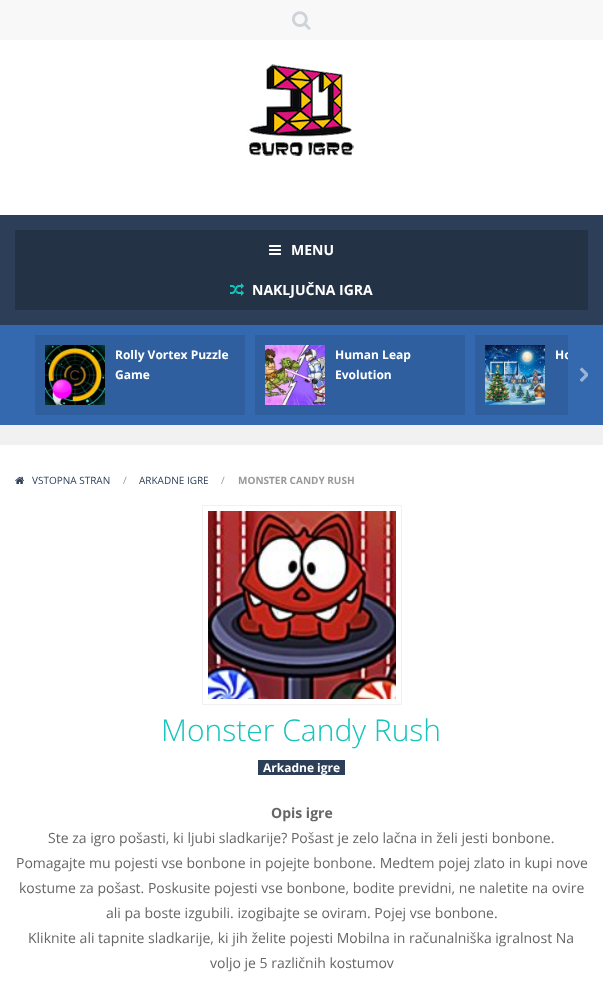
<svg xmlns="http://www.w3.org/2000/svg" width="603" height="991">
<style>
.a{font:bold 14px Open Sans;fill:#fff}
.b{font:bold 12px Open Sans;fill:#fff}
.c{font:10px Open Sans;fill:#2d3e58}
.d{font:10px Open Sans;fill:#999}
.e{font:bold 10px Open Sans;fill:#999}
.f{font:300 30px Open Sans;fill:#16c4bb}
.g{font:bold 14px Open Sans;fill:#666}
.h{font:14px Open Sans;fill:#666}
</style>
<defs>
<clipPath id="clip1"><path d="M35 335h533v80H35z"/></clipPath>
</defs>
<rect width="100%" height="100%" fill="#f1f1f1"/>
<path fill="#f8f8f8" d="M0 0h603v40H0z"/>
<image href="1.png" x="292" y="11" width="19" height="19"/>
<path fill="#fff" d="M0 40h603v175H0z"/>
<image href="2.png" x="247" y="64" width="107" height="93"/>
<path fill="#2d3e58" d="M0 215h603v110H0z"/>
<path fill="#243246" d="M15 230h573v80H15z"/>
<image href="3.png" x="269" y="245" width="12" height="10"/>
<image href="4.png" x="230" y="283" width="14" height="13"/>
<path fill="#3469af" d="M0 325h603v100H0z"/>
<path fill="#2f5f9e" d="M35 335h210v80H35z"/>
<image href="5.png" x="45" y="345" width="60" height="60"/>
<path fill="#2f5f9e" d="M255 335h210v80H255z"/>
<image href="6.png" x="265" y="345" width="60" height="60"/>
<path fill="#2f5f9e" d="M475 335h93v80H475z"/>
<image href="7.png" x="485" y="345" width="60" height="60"/>
<image href="8.png" x="579" y="367" width="9" height="15"/>
<path fill="#fff" d="M0 445h603v546H0z"/>
<image href="9.png" x="15" y="476" width="10" height="8"/>
<path fill="none" stroke="#f1f1f1" d="M202.5 505.5h199v199H202.5z"/>
<image href="10.png" x="208" y="511" width="188" height="188"/>
<path fill="#2d3e58" d="M258 760h87v15H258z"/>
<text class="a" x="291" y="255">MENU</text>
<text class="a" x="252" y="295">NAKLJUČNA IGRA</text>
<text class="b" x="115" y="359">Rolly Vortex Puzzle</text>
<text class="b" x="115" y="379">Game</text>
<text class="b" x="335" y="359">Human Leap</text>
<text class="b" x="335" y="379">Evolution</text>
<g clip-path="url(#clip1)">
<text class="b" x="555" y="359">Ho</text>
</g>
<text class="c" x="32" y="484">VSTOPNA STRAN</text>
<text class="d" x="123" y="484">/</text>
<text class="c" x="139" y="484">ARKADNE IGRE</text>
<text class="d" x="221" y="484">/</text>
<text class="e" x="238" y="484">MONSTER CANDY RUSH</text>
<text class="f" x="161" y="741">Monster Candy Rush</text>
<text class="b" x="263" y="772">Arkadne igre</text>
<text class="g" x="271" y="818">Opis igre</text>
<text class="h" x="48" y="843">Ste za igro pošasti, ki ljubi sladkarije? Pošast je zelo lačna in želi jesti bonbone.</text>
<text class="h" x="16" y="868">Pomagajte mu pojesti vse bonbone in pojejte bonbone. Medtem pojej zlato in kupi nove</text>
<text class="h" x="19" y="893">kostume za pošast. Poskusite pojesti vse bonbone, bodite previdni, ne naletite na ovire</text>
<text class="h" x="106" y="918">ali pa boste izgubili. izogibajte se oviram. Pojej vse bonbone.</text>
<text class="h" x="28" y="943">Kliknite ali tapnite sladkarije, ki jih želite pojesti Mobilna in računalniška igralnost Na</text>
<text class="h" x="210" y="968">voljo je 5 različnih kostumov</text>
</svg>
